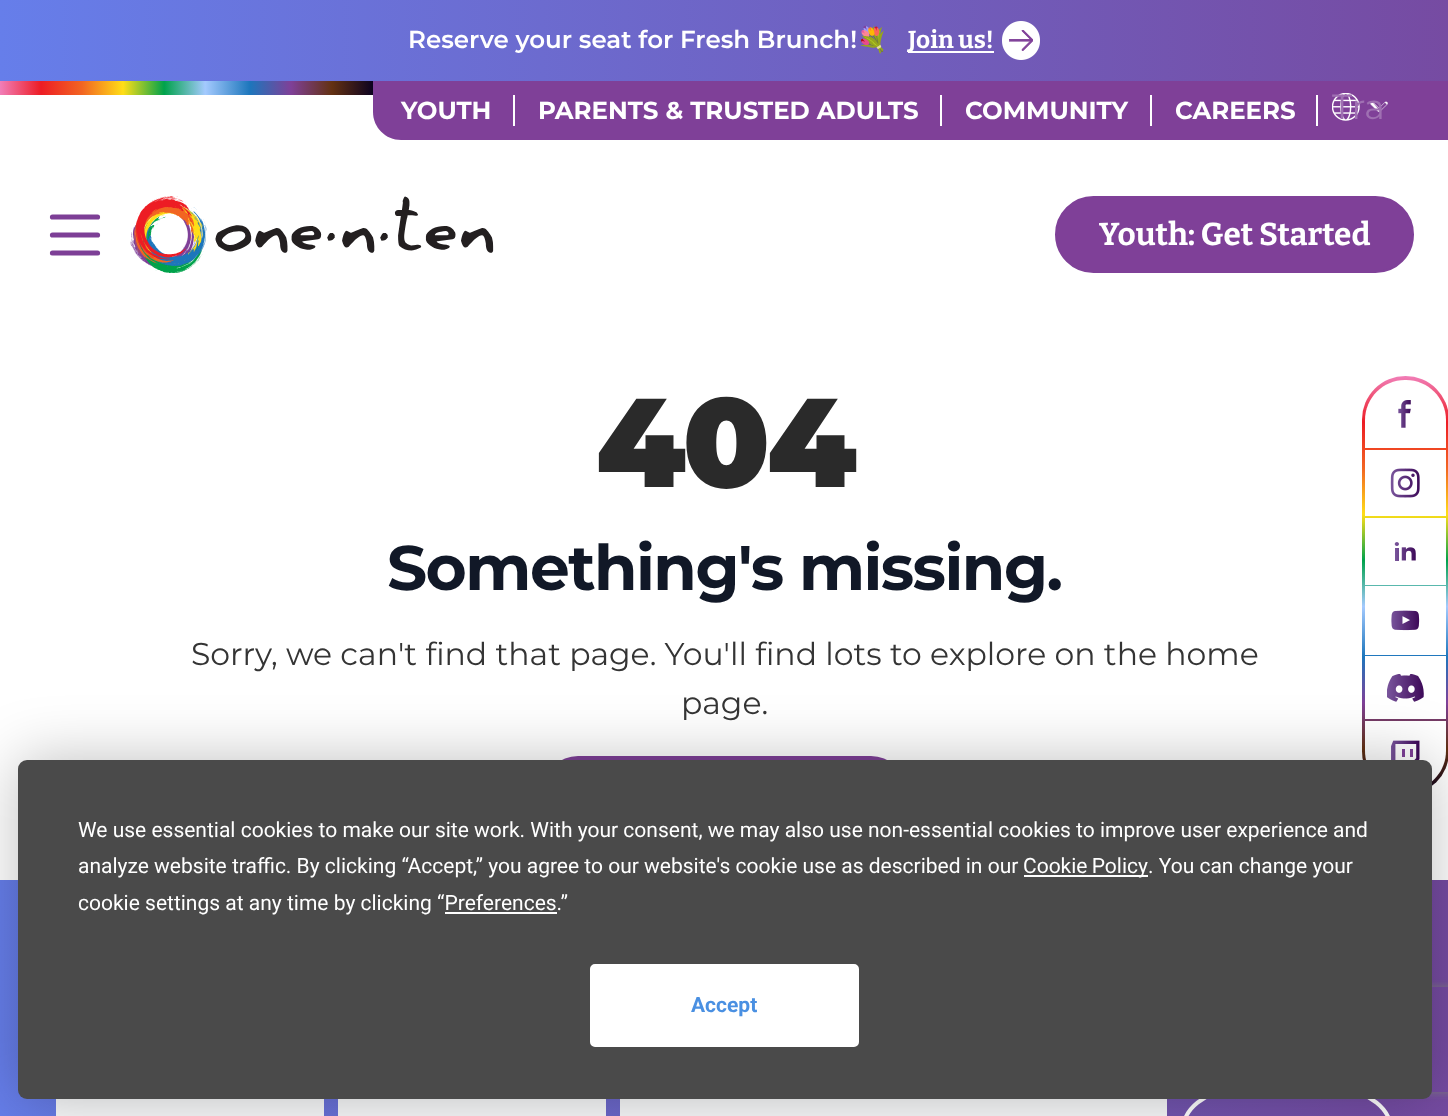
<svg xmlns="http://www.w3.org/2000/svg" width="1448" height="1116">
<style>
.a{font:600 24.5px Montserrat;fill:#fff}
.b{font:24.5px Noto Color Emoji;fill:#fff}
.c{font:bold 24.5px Bitter;fill:#fff}
.d{font:bold 24.5px Montserrat;fill:#fff}
.e{font:35px Montserrat;fill:#9f70b2}
.f{font:bold 31.5px Bitter;fill:#fff}
.g{font:900 126px Montserrat;letter-spacing:-3px;fill:#2a2a2a}
.h{font:bold 63px Montserrat;letter-spacing:-1.6px;fill:#111827}
.i{font:31.5px Montserrat;fill:#343434}
.j{font:21px Roboto;fill:#fff}
.k{font:bold 21px Roboto;fill:#4a90e2}
</style>
<defs>
<linearGradient id="g1" gradientUnits="userSpaceOnUse" x1="0" y1="40" x2="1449" y2="40"><stop offset="0" stop-color="#667eea"/><stop offset="1" stop-color="#764ba2"/></linearGradient>
<linearGradient id="g2" gradientUnits="userSpaceOnUse" x1="0" y1="88" x2="373" y2="87"><stop offset="0" stop-color="#f17eb8"/><stop offset="0.11" stop-color="#ed1c24"/><stop offset="0.22" stop-color="#f26522"/><stop offset="0.33" stop-color="#ffde17"/><stop offset="0.44" stop-color="#00a24b"/><stop offset="0.55" stop-color="#a4cafe"/><stop offset="0.67" stop-color="#1d76bc"/><stop offset="0.78" stop-color="#7f4098"/><stop offset="0.89" stop-color="#633112"/><stop offset="1" stop-color="#0c0220"/></linearGradient>
<linearGradient id="g3" gradientUnits="userSpaceOnUse" x1="1405" y1="376" x2="1405" y2="795"><stop offset="0" stop-color="#f17eb8"/><stop offset="0.11" stop-color="#ed1c24"/><stop offset="0.22" stop-color="#f26522"/><stop offset="0.33" stop-color="#ffde17"/><stop offset="0.44" stop-color="#00a24b"/><stop offset="0.55" stop-color="#a4cafe"/><stop offset="0.67" stop-color="#1d76bc"/><stop offset="0.78" stop-color="#7f4098"/><stop offset="0.89" stop-color="#633112"/><stop offset="1" stop-color="#0c0220"/></linearGradient>
<linearGradient id="g4" gradientUnits="userSpaceOnUse" x1="0" y1="1092" x2="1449" y2="1092"><stop offset="0" stop-color="#667eea"/><stop offset="1" stop-color="#764ba2"/></linearGradient>
<clipPath id="clip1"><path d="M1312 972h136v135h-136zm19 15h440c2 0 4 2 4 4v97c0 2-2 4-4 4h-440c-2 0-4-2-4-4v-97c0-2 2-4 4-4z" clip-rule="evenodd"/></clipPath>
</defs>
<rect width="100%" height="100%" fill="#fff"/>
<path fill="url(#g1)" d="M0 0h1448v81H0z"/>
<path fill="#fff" d="M908 51h86v2H908z"/>
<image href="1.png" x="1002" y="21" width="38" height="39"/>
<path fill="url(#g2)" d="M0 81h373v14H0z"/>
<path fill="#7f4098" d="M373 81h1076v59h-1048c-15.5 0-28-12.5-28-28z"/>
<path fill="#fff" d="M513 95h2v31H513z"/>
<path fill="#fff" d="M940 95h2v31H940z"/>
<path fill="#fff" d="M1150 95h2v31H1150z"/>
<path fill="#fff" d="M1316 95h2v31H1316z"/>
<image href="2.png" x="1332" y="93" width="56" height="28"/>
<path fill="none" stroke="#7d3f96" stroke-width="5.2" stroke-linecap="round" stroke-linejoin="round" d="M52.5 217h45m-45 18h45m-45 18h45"/>
<image href="3.png" x="130" y="196" width="364" height="77"/>
<rect fill="#7f4098" stroke="#7f4098" stroke-width="2" x="1056" y="197" width="357" height="75" rx="37.5"/>
<rect fill="#7f4098" x="544" y="756" width="361" height="68" rx="34"/>
<rect fill="url(#g3)" x="1362" y="376" width="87" height="419" rx="43.5"/>
<path fill="#fff" d="M1405 380h1c22 0 40 18 40 40v28h-81v-28c0-22 18-40 40-40z"/>
<image href="4.png" x="1398" y="400" width="13" height="28"/>
<path fill="#fff" d="M1365 450h81v66H1365z"/>
<image href="5.png" x="1390" y="468" width="30" height="30"/>
<path fill="#fff" d="M1365 518h81v67H1365z"/>
<image href="6.png" x="1394" y="542" width="22" height="19"/>
<path fill="#fff" d="M1365 586h81v69H1365z"/>
<image href="7.png" x="1391" y="610" width="29" height="21"/>
<path fill="#fff" d="M1365 656h81v63H1365z"/>
<image href="8.png" x="1387" y="674" width="37" height="28"/>
<path fill="#fff" d="M1365 721h81v30c0 22-18 40-40 40h-1c-22 0-40-18-40-40z"/>
<image href="9.png" x="1391" y="740" width="29" height="20"/>
<path fill="url(#g4)" d="M0 880h1448v236H0z"/>
<path fill="#f9fafb" d="M56 1099h268v17H56z"/>
<path fill="#f9fafb" d="M338 1099h268v17H338z"/>
<path fill="#f9fafb" d="M620 1099h547v17H620z"/>
<g clip-path="url(#clip1)">
<rect fill="#808080" filter="blur(4.5px)" x="1327" y="987" width="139" height="105" rx="4"/>
</g>
<rect fill="none" stroke="#fff" stroke-width="4" x="1183" y="1091" width="208" height="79" rx="49.5"/>
<rect fill="#00000040" filter="blur(30.5px)" x="18" y="760" width="1414" height="339" rx="9"/>
<rect fill="#4a4a4a" x="18" y="760" width="1414" height="339" rx="9"/>
<path fill="#fff" d="M1024 875h124v2H1024z"/>
<path fill="#fff" d="M445 912h112v2H445z"/>
<rect fill="#fff" stroke="#fff" stroke-width="2" x="591" y="965" width="267" height="81" rx="4"/>
<text class="a" x="408" y="48">Reserve your seat for Fresh Brunch!</text>
<text class="b" x="857" y="48">💐</text>
<text class="c" x="908" y="48">Join us!</text>
<text class="d" x="401" y="119">YOUTH</text>
<text class="d" x="538" y="119">PARENTS &amp; TRUSTED ADULTS</text>
<text class="d" x="965" y="119">COMMUNITY</text>
<text class="d" x="1175" y="119">CAREERS</text>
<text class="e" x="1332" y="119">Tra</text>
<text class="f" x="1099" y="245">Youth: Get Started</text>
<text class="g" x="596" y="487">404</text>
<text class="h" x="387" y="590">Something's missing.</text>
<text class="i" x="191" y="665">Sorry, we can't find that page. You'll find lots to explore on the home</text>
<text class="i" x="681" y="714">page.</text>
<text class="j" x="78" y="837">We use essential cookies to make our site work. With your consent, we may also use non-essential cookies to improve user experience and</text>
<text class="j" x="78" y="873">analyze website traffic. By clicking “Accept,” you agree to our website's cookie use as described in our</text>
<text class="j" x="1023" y="873" word-spacing="-1">Cookie Policy</text>
<text class="j" x="1148" y="873">. You can change your</text>
<text class="j" x="78" y="910">cookie settings at any time by clicking “Preferences.”</text>
<text class="k" x="691" y="1012">Accept</text>
</svg>
